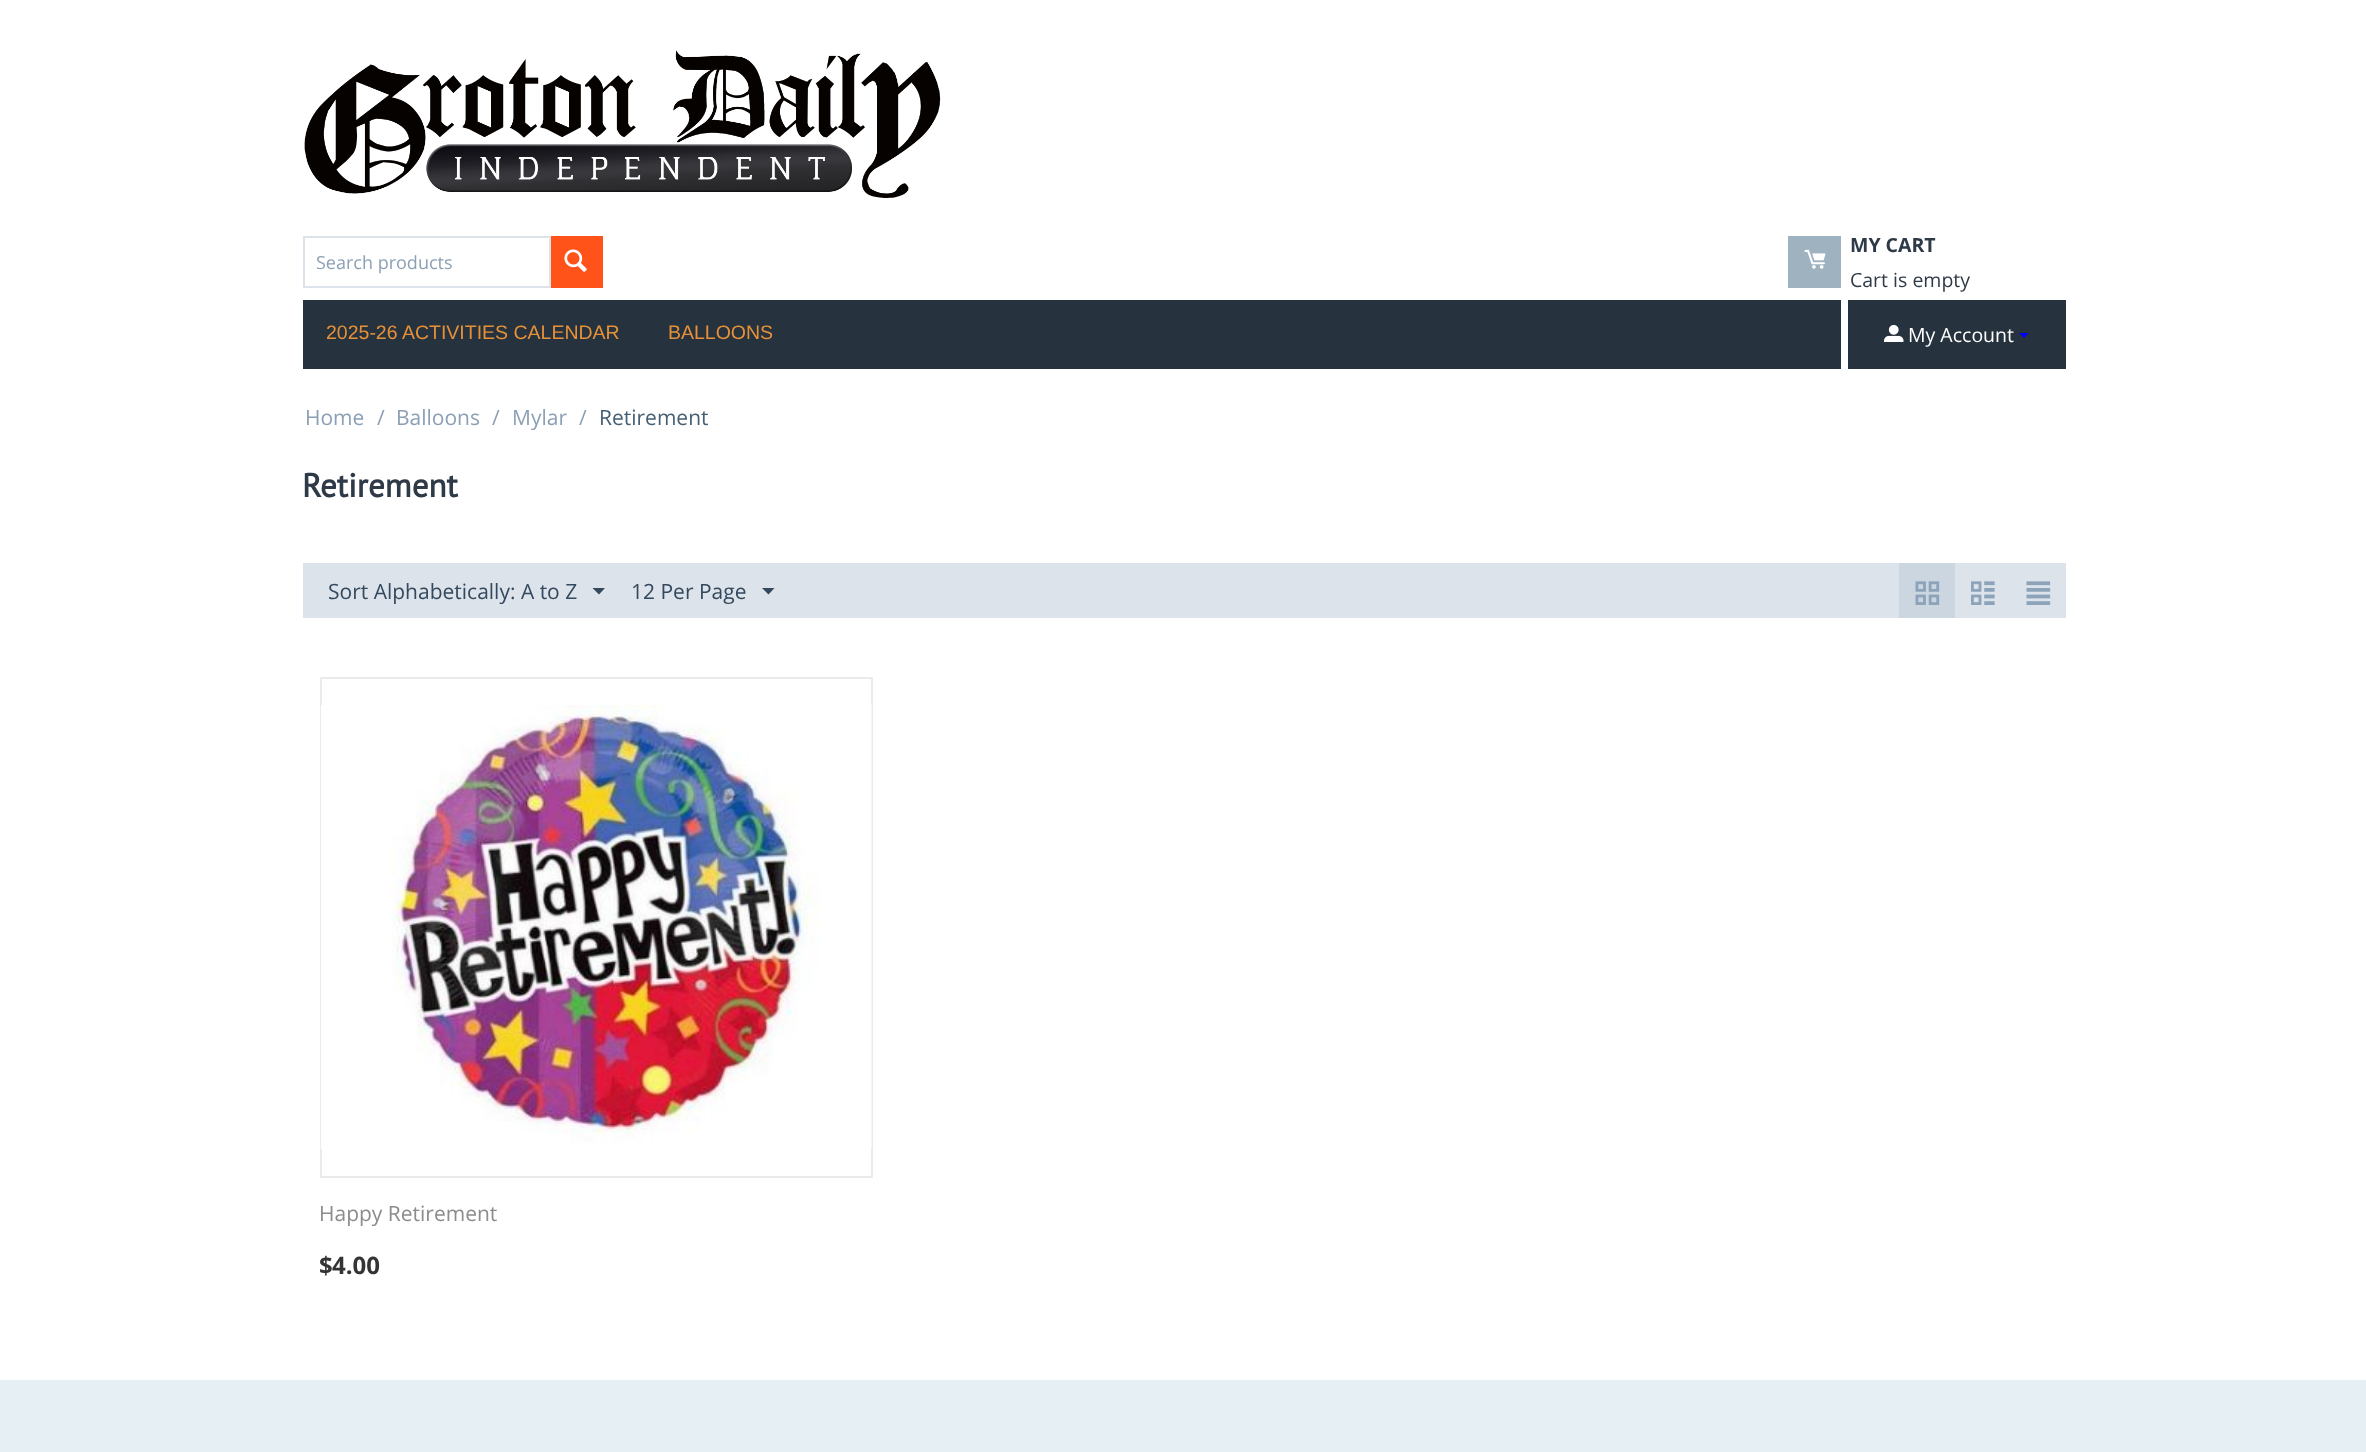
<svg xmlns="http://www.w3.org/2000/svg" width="2366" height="1452">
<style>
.a{font:18px Open Sans;fill:#8ca0b5}
.b{font:bold 19.5px Open Sans;fill:#2e3a47}
.c{font:19.5px Open Sans;fill:#2e3a47}
.d{font:19.5px Liberation Sans;fill:#e69138}
.e{font:19.5px Open Sans;fill:#fff}
.f{font:21px Open Sans;fill:#8ca0b5}
.g{font:21px Open Sans;fill:#465f73}
.h{font:bold 33px PT Sans;fill:#2e3a47}
.i{font:21px Open Sans;fill:#34495e}
.j{font:21px Open Sans;fill:#8d8c8c}
.k{font:bold 24px Open Sans;fill:#343434}
</style>
<defs>
<clipPath id="clip1"><path d="M317 249h220v26H317z"/></clipPath>
<clipPath id="clip2"><path d="M320 1248h553v33H320z"/></clipPath>
</defs>
<rect width="100%" height="100%" fill="#fff"/>
<image href="1.png" x="304" y="50" width="637" height="148"/>
<path fill="none" stroke="#dce3ea" stroke-width="2" d="M304 237h246v50H304z"/>
<path fill="#ff5319" d="M551 236h52v52H551z"/>
<image href="2.png" x="564" y="249" width="23" height="23"/>
<path fill="#9fb2c0" d="M1788 236h53v52H1788z"/>
<image href="3.png" x="1804" y="249" width="22" height="20"/>
<path fill="#26323e" d="M303 300h1538v69H303z"/>
<path fill="#26323e" d="M1848 300h218v69H1848z"/>
<image href="4.png" x="1884" y="324" width="20" height="18"/>
<path fill="#00f" d="M2024 338l-5-5h9.5z"/>
<path fill="#dce3ea" d="M303 563h1763v55H303z"/>
<path fill="#34495e" d="M599 594.5l-6.5-6.5h12.5z"/>
<path fill="#34495e" d="M768.5 594.5l-6.5-6.5h12.5z"/>
<path fill="#ccd6e0" d="M1899 563h56v55H1899z"/>
<image href="5.png" x="1915" y="581" width="25" height="24"/>
<image href="6.png" x="1971" y="581" width="24" height="24"/>
<image href="7.png" x="2026" y="581" width="25" height="24"/>
<path fill="none" stroke="#ebebeb" stroke-width="2" d="M321 678h551v499H321z"/>
<image href="8.png" x="321" y="705" width="551" height="444"/>
<path fill="#e6eff4" d="M0 1380h2366v72H0z"/>
<g clip-path="url(#clip1)">
<text class="a" x="316" y="269">Search products</text>
</g>
<text class="b" x="1850" y="252">MY CART</text>
<text class="c" x="1850" y="287">Cart is empty</text>
<text class="d" x="326" y="339">2025-26 ACTIVITIES CALENDAR</text>
<text class="d" x="668" y="339">BALLOONS</text>
<text class="e" x="1908" y="342">My Account</text>
<text class="f" x="305" y="425">Home</text>
<text class="f" x="377" y="425">/</text>
<text class="f" x="396" y="425">Balloons</text>
<text class="f" x="492" y="425">/</text>
<text class="f" x="512" y="425">Mylar</text>
<text class="f" x="579" y="425">/</text>
<text class="g" x="599" y="425">Retirement</text>
<text class="h" x="302" y="497">Retirement</text>
<text class="i" x="328" y="599">Sort Alphabetically: A to Z</text>
<text class="i" x="631" y="599">12 Per Page</text>
<text class="j" x="319" y="1221">Happy Retirement</text>
<g clip-path="url(#clip2)">
<text class="k" x="319" y="1274">$</text>
</g>
<text class="k" x="332" y="1274">4.00</text>
</svg>
